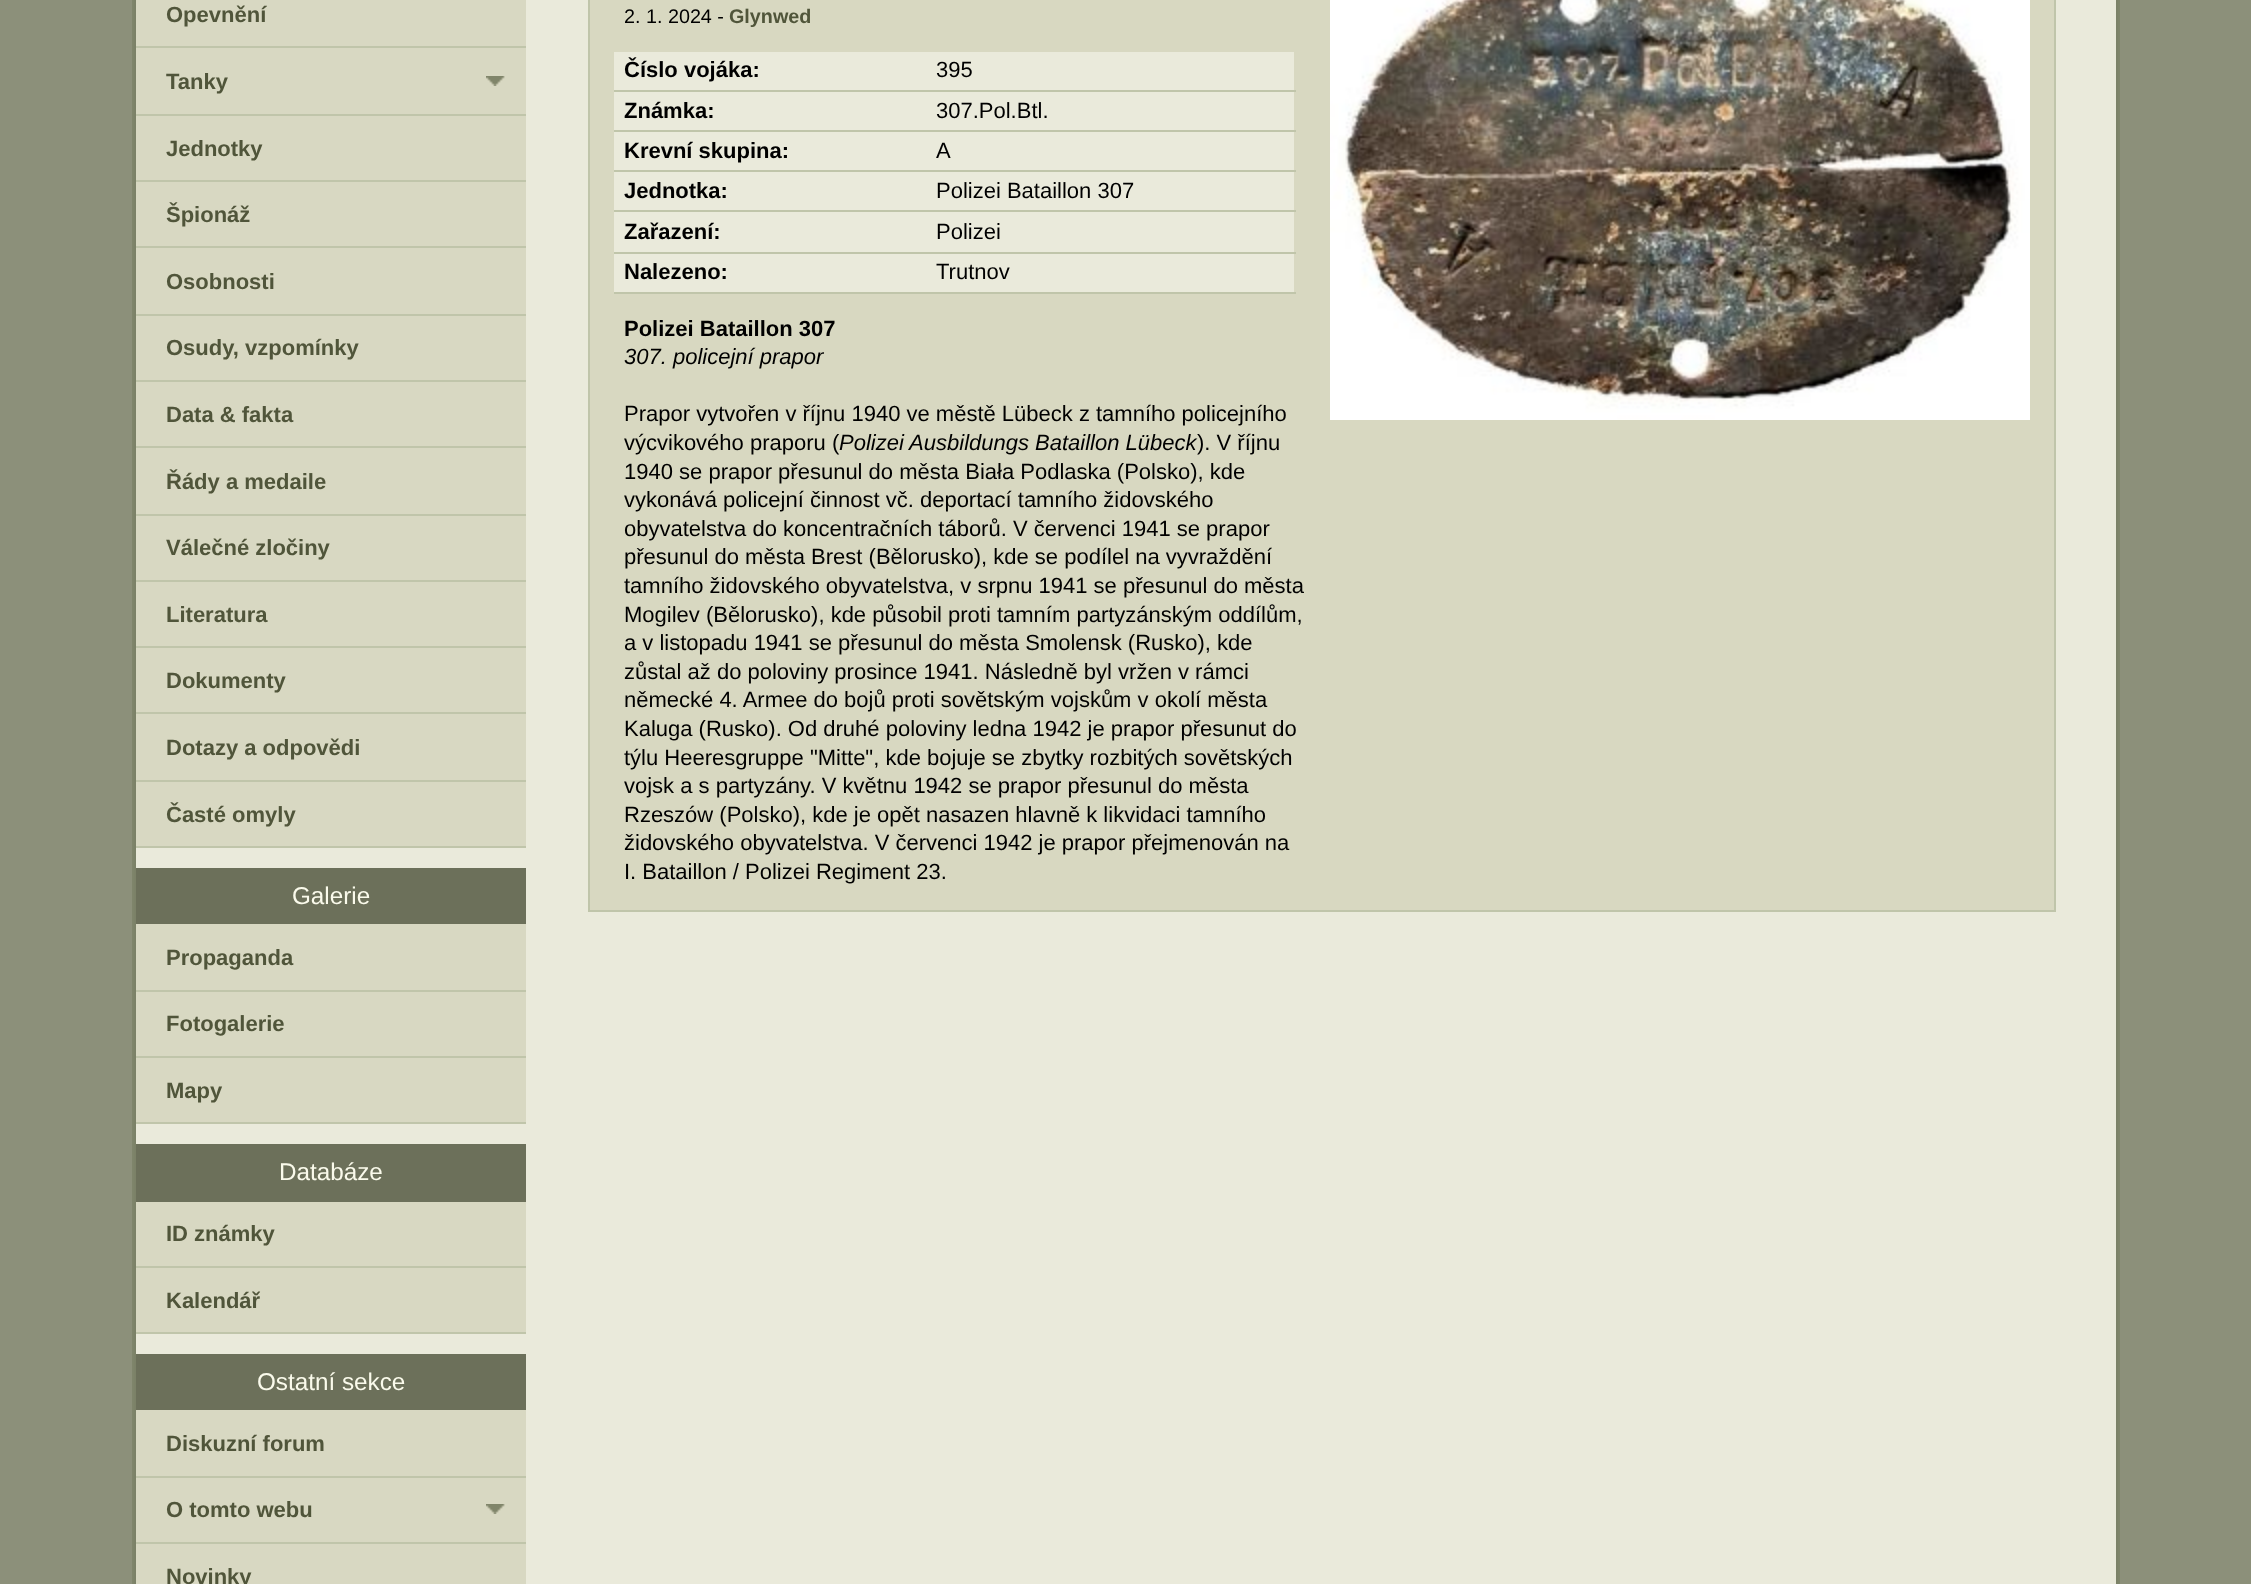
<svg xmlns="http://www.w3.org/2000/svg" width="2251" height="1584">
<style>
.a{font:bold 22px Liberation Sans;fill:#50553a}
.b{font:24.25px Liberation Sans;fill:#fafaeb}
.c{font:19.75px Liberation Sans;fill:#000}
.d{font:bold 19.75px Liberation Sans;fill:#50553a}
.e{font:bold 22px Liberation Sans;fill:#000}
.f{font:22px Liberation Sans;fill:#000}
.g{font:italic 22px Liberation Sans;fill:#000}
</style>
<rect width="100%" height="100%" fill="#8c907a"/>
<image href="1.png" x="132" y="0" width="1988" height="1584"/>
<path fill="#eaeadb" d="M526 0h1590v1584H526z"/>
<path fill="#d8d8c2" d="M136 0h390v1584H136z"/>
<path fill="#c0c5aa" d="M136 46h390v2H136z"/>
<path fill="#c0c5aa" d="M136 114h390v2H136z"/>
<image href="2.png" x="486" y="76" width="19" height="10"/>
<path fill="#c0c5aa" d="M136 180h390v2H136z"/>
<path fill="#c0c5aa" d="M136 246h390v2H136z"/>
<path fill="#c0c5aa" d="M136 314h390v2H136z"/>
<path fill="#c0c5aa" d="M136 380h390v2H136z"/>
<path fill="#c0c5aa" d="M136 446h390v2H136z"/>
<path fill="#c0c5aa" d="M136 514h390v2H136z"/>
<path fill="#c0c5aa" d="M136 580h390v2H136z"/>
<path fill="#c0c5aa" d="M136 646h390v2H136z"/>
<path fill="#c0c5aa" d="M136 712h390v2H136z"/>
<path fill="#c0c5aa" d="M136 780h390v2H136z"/>
<path fill="#c0c5aa" d="M136 846h390v2H136z"/>
<path fill="#6c705a" d="M136 868h390v56H136z"/>
<path fill="#eaeadb" d="M136 848h390v20H136z"/>
<path fill="#c0c5aa" d="M136 990h390v2H136z"/>
<path fill="#c0c5aa" d="M136 1056h390v2H136z"/>
<path fill="#c0c5aa" d="M136 1122h390v2H136z"/>
<path fill="#6c705a" d="M136 1144h390v58H136z"/>
<path fill="#eaeadb" d="M136 1124h390v20H136z"/>
<path fill="#c0c5aa" d="M136 1266h390v2H136z"/>
<path fill="#c0c5aa" d="M136 1332h390v2H136z"/>
<path fill="#6c705a" d="M136 1354h390v56H136z"/>
<path fill="#eaeadb" d="M136 1334h390v20H136z"/>
<path fill="#c0c5aa" d="M136 1476h390v2H136z"/>
<path fill="#c0c5aa" d="M136 1542h390v2H136z"/>
<image href="2.png" x="486" y="1504" width="19" height="10"/>
<path fill="#d8d8c1" stroke="#c0c5aa" stroke-width="2" d="M589 -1h1466v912H589z"/>
<image href="3.png" x="1330" y="0" width="700" height="420"/>
<path fill="#eaeadb" d="M614 52h680v38H614z"/>
<path fill="#c0c5aa" d="M614 90h682v2H614z"/>
<path fill="#eaeadb" d="M614 92h680v38H614z"/>
<path fill="#c0c5aa" d="M614 130h682v2H614z"/>
<path fill="#eaeadb" d="M614 132h680v38H614z"/>
<path fill="#c0c5aa" d="M614 170h682v2H614z"/>
<path fill="#eaeadb" d="M614 172h680v38H614z"/>
<path fill="#c0c5aa" d="M614 210h682v2H614z"/>
<path fill="#eaeadb" d="M614 212h680v40H614z"/>
<path fill="#c0c5aa" d="M614 252h682v2H614z"/>
<path fill="#eaeadb" d="M614 254h680v38H614z"/>
<path fill="#c0c5aa" d="M614 292h682v2H614z"/>
<text class="a" x="166" y="22">Opevnění</text>
<text class="a" x="166" y="89">Tanky</text>
<text class="a" x="166" y="156">Jednotky</text>
<text class="a" x="166" y="222">Špionáž</text>
<text class="a" x="166" y="289">Osobnosti</text>
<text class="a" x="166" y="355">Osudy, vzpomínky</text>
<text class="a" x="166" y="422">Data &amp; fakta</text>
<text class="a" x="166" y="489">Řády a medaile</text>
<text class="a" x="166" y="555">Válečné zločiny</text>
<text class="a" x="166" y="622">Literatura</text>
<text class="a" x="166" y="688">Dokumenty</text>
<text class="a" x="166" y="755">Dotazy a odpovědi</text>
<text class="a" x="166" y="822">Časté omyly</text>
<text class="b" x="292" y="904">Galerie</text>
<text class="a" x="166" y="965">Propaganda</text>
<text class="a" x="166" y="1031">Fotogalerie</text>
<text class="a" x="166" y="1098">Mapy</text>
<text class="b" x="279" y="1180">Databáze</text>
<text class="a" x="166" y="1241">ID známky</text>
<text class="a" x="166" y="1308">Kalendář</text>
<text class="b" x="257" y="1390">Ostatní sekce</text>
<text class="a" x="166" y="1451">Diskuzní forum</text>
<text class="a" x="166" y="1517">O tomto webu</text>
<text class="a" x="166" y="1584">Novinky</text>
<text class="c" x="624" y="23">2. 1. 2024 -</text>
<text class="d" x="729" y="23">Glynwed</text>
<text class="e" x="624" y="77">Číslo vojáka:</text>
<text class="f" x="936" y="77">395</text>
<text class="e" x="624" y="118">Známka:</text>
<text class="f" x="936" y="118">307.Pol.Btl.</text>
<text class="e" x="624" y="158">Krevní skupina:</text>
<text class="f" x="936" y="158">A</text>
<text class="e" x="624" y="198">Jednotka:</text>
<text class="f" x="936" y="198">Polizei Bataillon 307</text>
<text class="e" x="624" y="239">Zařazení:</text>
<text class="f" x="936" y="239">Polizei</text>
<text class="e" x="624" y="279">Nalezeno:</text>
<text class="f" x="936" y="279">Trutnov</text>
<text class="e" x="624" y="336">Polizei Bataillon 307</text>
<text class="g" x="624" y="364">307. policejní prapor</text>
<text class="f" x="624" y="421">Prapor vytvořen v říjnu 1940 ve městě Lübeck z tamního policejního</text>
<text class="f" x="624" y="450">výcvikového praporu (</text>
<text class="g" x="839" y="450">Polizei Ausbildungs Bataillon Lübeck</text>
<text class="f" x="1197" y="450">). V říjnu</text>
<text class="f" x="624" y="479">1940 se prapor přesunul do města Biała Podlaska (Polsko), kde</text>
<text class="f" x="624" y="507">vykonává policejní činnost vč. deportací tamního židovského</text>
<text class="f" x="624" y="536">obyvatelstva do koncentračních táborů. V červenci 1941 se prapor</text>
<text class="f" x="624" y="564">přesunul do města Brest (Bělorusko), kde se podílel na vyvraždění</text>
<text class="f" x="624" y="593">tamního židovského obyvatelstva, v srpnu 1941 se přesunul do města</text>
<text class="f" x="624" y="622">Mogilev (Bělorusko), kde působil proti tamním partyzánským oddílům,</text>
<text class="f" x="624" y="650">a v listopadu 1941 se přesunul do města Smolensk (Rusko), kde</text>
<text class="f" x="624" y="679">zůstal až do poloviny prosince 1941. Následně byl vržen v rámci</text>
<text class="f" x="624" y="707">německé 4. Armee do bojů proti sovětským vojskům v okolí města</text>
<text class="f" x="624" y="736">Kaluga (Rusko). Od druhé poloviny ledna 1942 je prapor přesunut do</text>
<text class="f" x="624" y="765">týlu Heeresgruppe "Mitte", kde bojuje se zbytky rozbitých sovětských</text>
<text class="f" x="624" y="793">vojsk a s partyzány. V květnu 1942 se prapor přesunul do města</text>
<text class="f" x="624" y="822">Rzeszów (Polsko), kde je opět nasazen hlavně k likvidaci tamního</text>
<text class="f" x="624" y="850">židovského obyvatelstva. V červenci 1942 je prapor přejmenován na</text>
<text class="f" x="624" y="879">I. Bataillon / Polizei Regiment 23.</text>
</svg>
